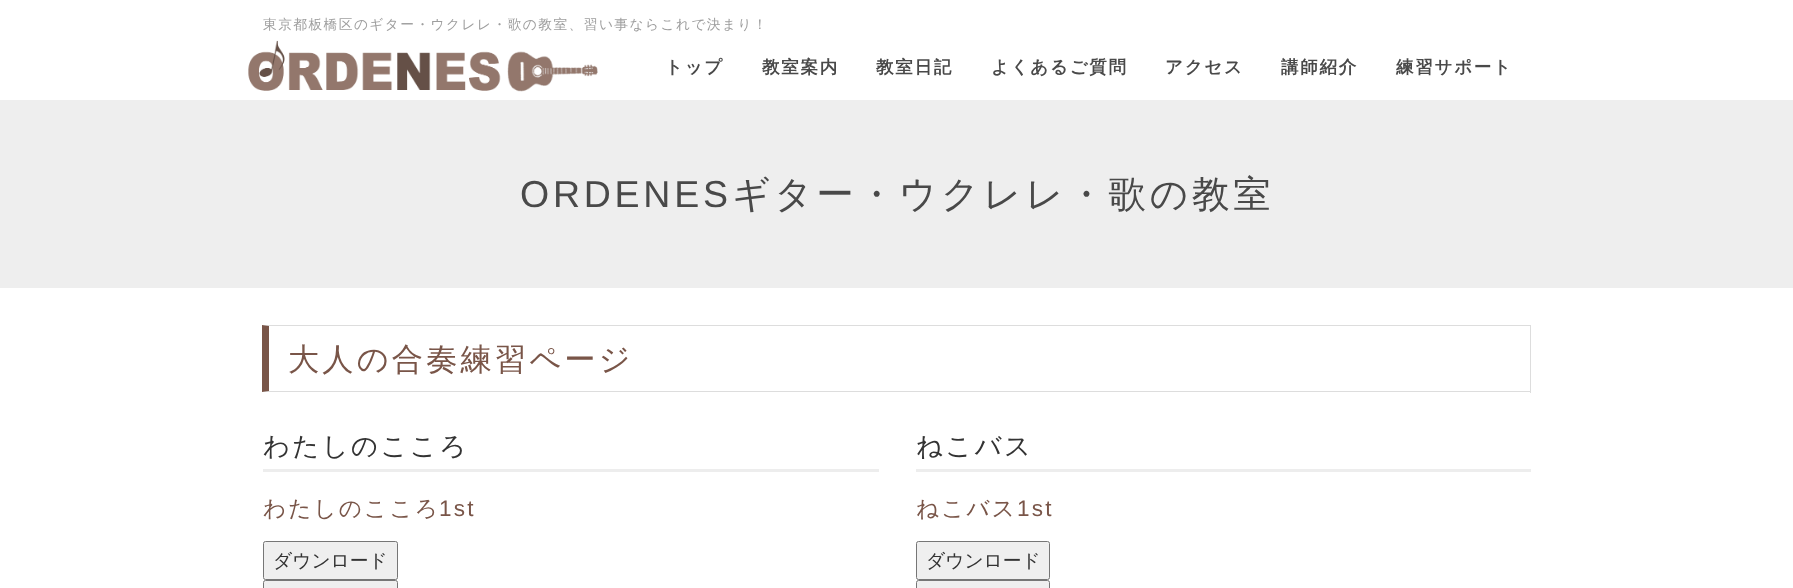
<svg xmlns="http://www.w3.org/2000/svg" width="1793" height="588">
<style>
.a{font:500 13.75px WenQuanYi Zen Hei;letter-spacing:1.4px;fill:#9e9e9e}
.b{font:bold 17.5px WenQuanYi Zen Hei;letter-spacing:1.75px;fill:#494949}
.c{font:37.5px Liberation Sans;letter-spacing:3.75px;fill:#494949}
.d{font:500 37.5px WenQuanYi Zen Hei;letter-spacing:3.75px;fill:#494949}
.e{font:500 31.25px WenQuanYi Zen Hei;letter-spacing:3.1px;fill:#795548}
.f{font:500 26.25px WenQuanYi Zen Hei;letter-spacing:2.5px;fill:#333}
.g{font:500 22.5px WenQuanYi Zen Hei;letter-spacing:2.25px;fill:#795548}
.h{font:22.5px Liberation Sans;letter-spacing:2.25px;fill:#795548}
.i{font:500 18.75px WenQuanYi Zen Hei;fill:#333}
</style>
<rect width="100%" height="100%" fill="#fff"/>
<image href="1.png" x="248" y="40" width="350" height="52"/>
<path fill="#eee" d="M0 100h1793v188H0z"/>
<path fill="#ddd" d="M262 325h1269l-1 1h-1261z"/>
<path fill="#ddd" d="M1530 325h1v68H1530z"/>
<path fill="#ddd" d="M1531 392h-1269l7-1h1261z"/>
<path fill="#795548" d="M262 392v-67l7 1v65z"/>
<path fill="#ededed" d="M263 469h616v3H263z"/>
<rect fill="#efefef" stroke="#767676" x="263.5" y="541.5" width="134" height="38" rx="2"/>
<rect fill="#efefef" stroke="#767676" x="263.5" y="580.5" width="134" height="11" rx="2"/>
<path fill="#ededed" d="M916 469h615v3H916z"/>
<rect fill="#efefef" stroke="#767676" x="916.5" y="541.5" width="133" height="38" rx="2"/>
<rect fill="#efefef" stroke="#767676" x="916.5" y="580.5" width="133" height="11" rx="2"/>
<text class="a" x="263" y="29">東京都板橋区のギター・ウクレレ・歌の教室、習い事ならこれで決まり！</text>
<text class="b" x="665" y="73">トップ</text>
<text class="b" x="762" y="73">教室案内</text>
<text class="b" x="876" y="73">教室日記</text>
<text class="b" x="991" y="73">よくあるご質問</text>
<text class="b" x="1165" y="73">アクセス</text>
<text class="b" x="1281" y="73">講師紹介</text>
<text class="b" x="1396" y="73">練習サポート</text>
<text class="c" x="520" y="207">ORDENES</text>
<text class="d" x="732" y="207">ギター・ウクレレ・歌の教室</text>
<text class="e" x="288" y="370">大人の合奏練習ページ</text>
<text class="f" x="263" y="455">わたしのこころ</text>
<text class="g" x="263" y="516">わたしのこころ</text>
<text class="h" x="439" y="516">1st</text>
<text class="i" x="273" y="567">ダウンロード</text>
<text class="f" x="916" y="455">ねこバス</text>
<text class="g" x="916" y="516">ねこバス</text>
<text class="h" x="1017" y="516">1st</text>
<text class="i" x="926" y="567">ダウンロード</text>
</svg>
